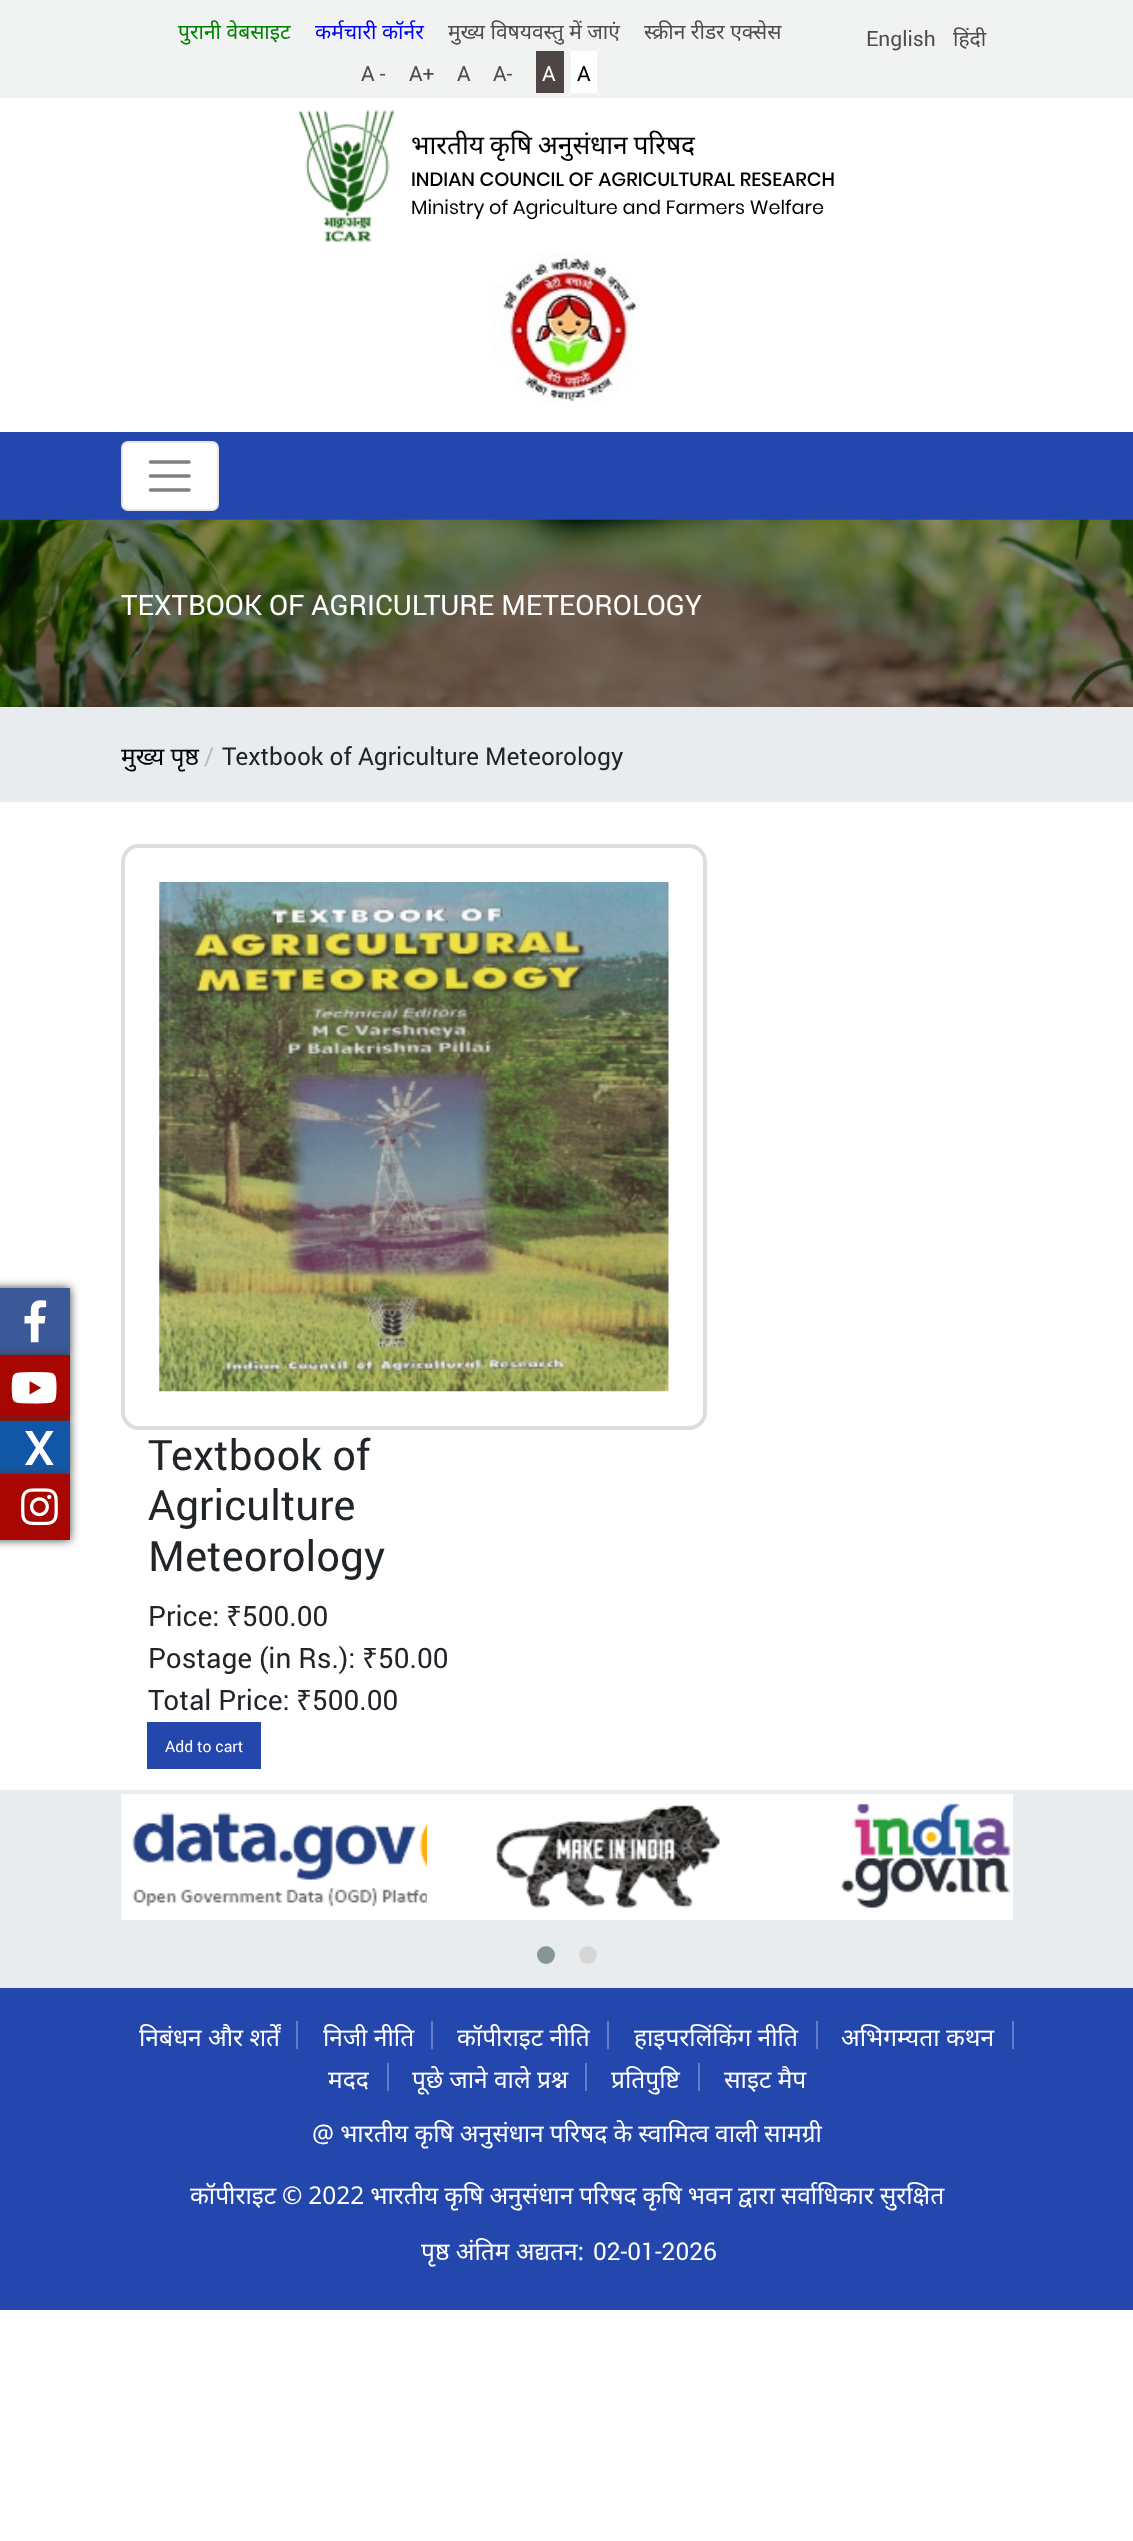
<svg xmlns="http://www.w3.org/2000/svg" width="1133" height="2541">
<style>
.a{font:21px Noto Sans;fill:#008000}
.b{font:21px Noto Sans;fill:#00f}
.c{font:21px Noto Sans;fill:#4d4d4f}
.d{font:21px Roboto;fill:#4d4d4f}
.e{font:21px Roboto;fill:#fff}
.f{font:21px Roboto;fill:#000}
.g{font:26.25px Noto Sans;fill:#000}
.h{font:500 19.25px Poppins;fill:#000}
.i{font:19.25px Poppins;fill:#000}
.j{font:bold 46px Roboto;fill:#fff}
.k{font:28px Roboto;fill:#fff}
.l{font:24.5px Noto Sans;fill:#000}
.m{font:24.5px Roboto;fill:#bbb}
.n{font:24.5px Roboto;fill:#212529}
.o{font:42px Roboto;fill:#212529}
.p{font:28px Roboto;fill:#212529}
.q{font:28px Noto Sans;fill:#212529}
.r{font:15.75px Roboto;fill:#fff}
.s{font:24.5px Noto Sans;fill:#fff}
.t{font:24.5px Roboto;fill:#fff}
</style>
<rect width="100%" height="100%" fill="#fff"/>
<path fill="#f1f2f2" d="M0 0h1133v98H0z"/>
<path fill="#4e4545" d="M536 51h28v42H536z"/>
<path fill="#fff" d="M571 51h26v42H571z"/>
<image href="1.png" x="299" y="110" width="95" height="132"/>
<image href="2.png" x="493" y="254" width="146" height="150"/>
<path fill="#2447ad" d="M0 432h1133v88H0z"/>
<rect fill="#fff" x="121" y="441" width="98" height="70" rx="7"/>
<rect fill="none" stroke="#0000001a" stroke-width="2" x="122" y="442" width="96" height="68" rx="6"/>
<path fill="none" stroke="#808080" stroke-width="3.5" stroke-linecap="round" d="M150.5 462h38.5m-38.5 14h38.5m-38.5 14h38.5"/>
<path fill="#3e3d3d" filter="blur(5px)" d="M-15 1288h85v67H-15z"/>
<path fill="#3b5998" d="M0 1288h70v67H0z"/>
<image href="3.png" x="24" y="1300" width="23" height="43"/>
<path fill="#3e3d3d" filter="blur(5px)" d="M-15 1355h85v66H-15z"/>
<path fill="#a80600" d="M0 1355h70v66H0z"/>
<image href="4.png" x="11" y="1372" width="46" height="32"/>
<path fill="#3e3d3d" filter="blur(5px)" d="M-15 1421h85v53H-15z"/>
<path fill="#1157a6" d="M0 1421h70v53H0z"/>
<path fill="#3e3d3d" filter="blur(5px)" d="M-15 1474h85v66H-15z"/>
<path fill="#a80600" d="M0 1474h70v66H0z"/>
<image href="5.png" x="21" y="1488" width="37" height="38"/>
<image href="6.png" x="0" y="519" width="1133" height="188"/>
<path fill="#e9ecef" d="M0 707h1133v95H0z"/>
<rect fill="none" stroke="#ddd" stroke-width="4" x="123" y="846" width="582" height="582" rx="16"/>
<image href="7.png" x="159" y="882" width="510" height="510"/>
<path fill="#2447ad" d="M147 1722h114v47H147z"/>
<path fill="#e9ecef" d="M0 1790h1133v198H0z"/>
<image href="8.png" x="121" y="1794" width="306" height="126"/>
<image href="9.png" x="427" y="1794" width="387" height="126"/>
<image href="10.png" x="814" y="1794" width="199" height="126"/>
<circle fill="#869791" cx="546" cy="1955" r="9"/>
<circle fill="#d6d6d6" cx="588" cy="1955" r="9"/>
<path fill="#2447ad" d="M0 1988h1133v322H0z"/>
<path fill="#617bc4" d="M296 2021h2v28H296z"/>
<path fill="#617bc4" d="M431 2021h2v28H431z"/>
<path fill="#617bc4" d="M607 2021h2v28H607z"/>
<path fill="#617bc4" d="M816 2021h2v28H816z"/>
<path fill="#617bc4" d="M1012 2021h2v28H1012z"/>
<path fill="#617bc4" d="M387 2063h2v28H387z"/>
<path fill="#617bc4" d="M585 2063h2v28H585z"/>
<path fill="#617bc4" d="M698 2063h2v28H698z"/>
<text class="a" x="178" y="39">पुरानी वेबसाइट</text>
<text class="b" x="315" y="39">कर्मचारी कॉर्नर</text>
<text class="c" x="448" y="39">मुख्य विषयवस्तु में जाएं</text>
<text class="c" x="644" y="39">स्क्रीन रीडर एक्सेस</text>
<text class="d" x="361" y="81">A -</text>
<text class="d" x="409" y="81">A+</text>
<text class="d" x="457" y="81">A</text>
<text class="d" x="493" y="81">A-</text>
<text class="e" x="542" y="81">A</text>
<text class="f" x="577" y="81">A</text>
<text class="d" x="866" y="46">English</text>
<text class="c" x="953" y="46">हिंदी</text>
<text class="g" x="411" y="154" word-spacing="-1">भारतीय कृषि अनुसंधान परिषद</text>
<text class="h" x="411" y="186">INDIAN COUNCIL OF AGRICULTURAL RESEARCH</text>
<text class="i" x="411" y="214">Ministry of Agriculture and Farmers Welfare</text>
<text class="j" x="24" y="1465">X</text>
<text class="k" x="121" y="615">TEXTBOOK OF AGRICULTURE METEOROLOGY</text>
<text class="l" x="121" y="765">मुख्य पृष्ठ</text>
<text class="m" x="204" y="765">/</text>
<text class="n" x="222" y="765">Textbook of Agriculture Meteorology</text>
<text class="o" x="148" y="1470">Textbook of</text>
<text class="o" x="148" y="1520">Agriculture</text>
<text class="o" x="148" y="1571">Meteorology</text>
<text class="p" x="148" y="1626">Price:</text>
<text class="q" x="226" y="1626">₹</text>
<text class="p" x="242" y="1626">500.00</text>
<text class="p" x="148" y="1668">Postage (in Rs.):</text>
<text class="q" x="362" y="1668">₹</text>
<text class="p" x="378" y="1668">50.00</text>
<text class="p" x="148" y="1710">Total Price:</text>
<text class="q" x="296" y="1710">₹</text>
<text class="p" x="312" y="1710">500.00</text>
<text class="r" x="165" y="1752">Add to cart</text>
<text class="s" x="139" y="2046">निबंधन और शर्तें</text>
<text class="s" x="323" y="2046">निजी नीति</text>
<text class="s" x="457" y="2046">कॉपीराइट नीति</text>
<text class="s" x="634" y="2046">हाइपरलिंकिंग नीति</text>
<text class="s" x="841" y="2046">अभिगम्यता कथन</text>
<text class="s" x="328" y="2088">मदद</text>
<text class="s" x="412" y="2088">पूछे जाने वाले प्रश्न</text>
<text class="s" x="611" y="2088">प्रतिपुष्टि</text>
<text class="s" x="724" y="2088">साइट मैप</text>
<text class="s" x="312" y="2142" word-spacing="-0.25">@ भारतीय कृषि अनुसंधान परिषद के स्वामित्व वाली सामग्री</text>
<text class="s" x="190" y="2204" word-spacing="-0.5">कॉपीराइट © 2022 भारतीय कृषि अनुसंधान परिषद कृषि भवन द्वारा सर्वाधिकार सुरक्षित</text>
<text class="s" x="421" y="2260">पृष्ठ अंतिम अद्यतन:</text>
<text class="t" x="593" y="2260">02-01-2026</text>
</svg>
